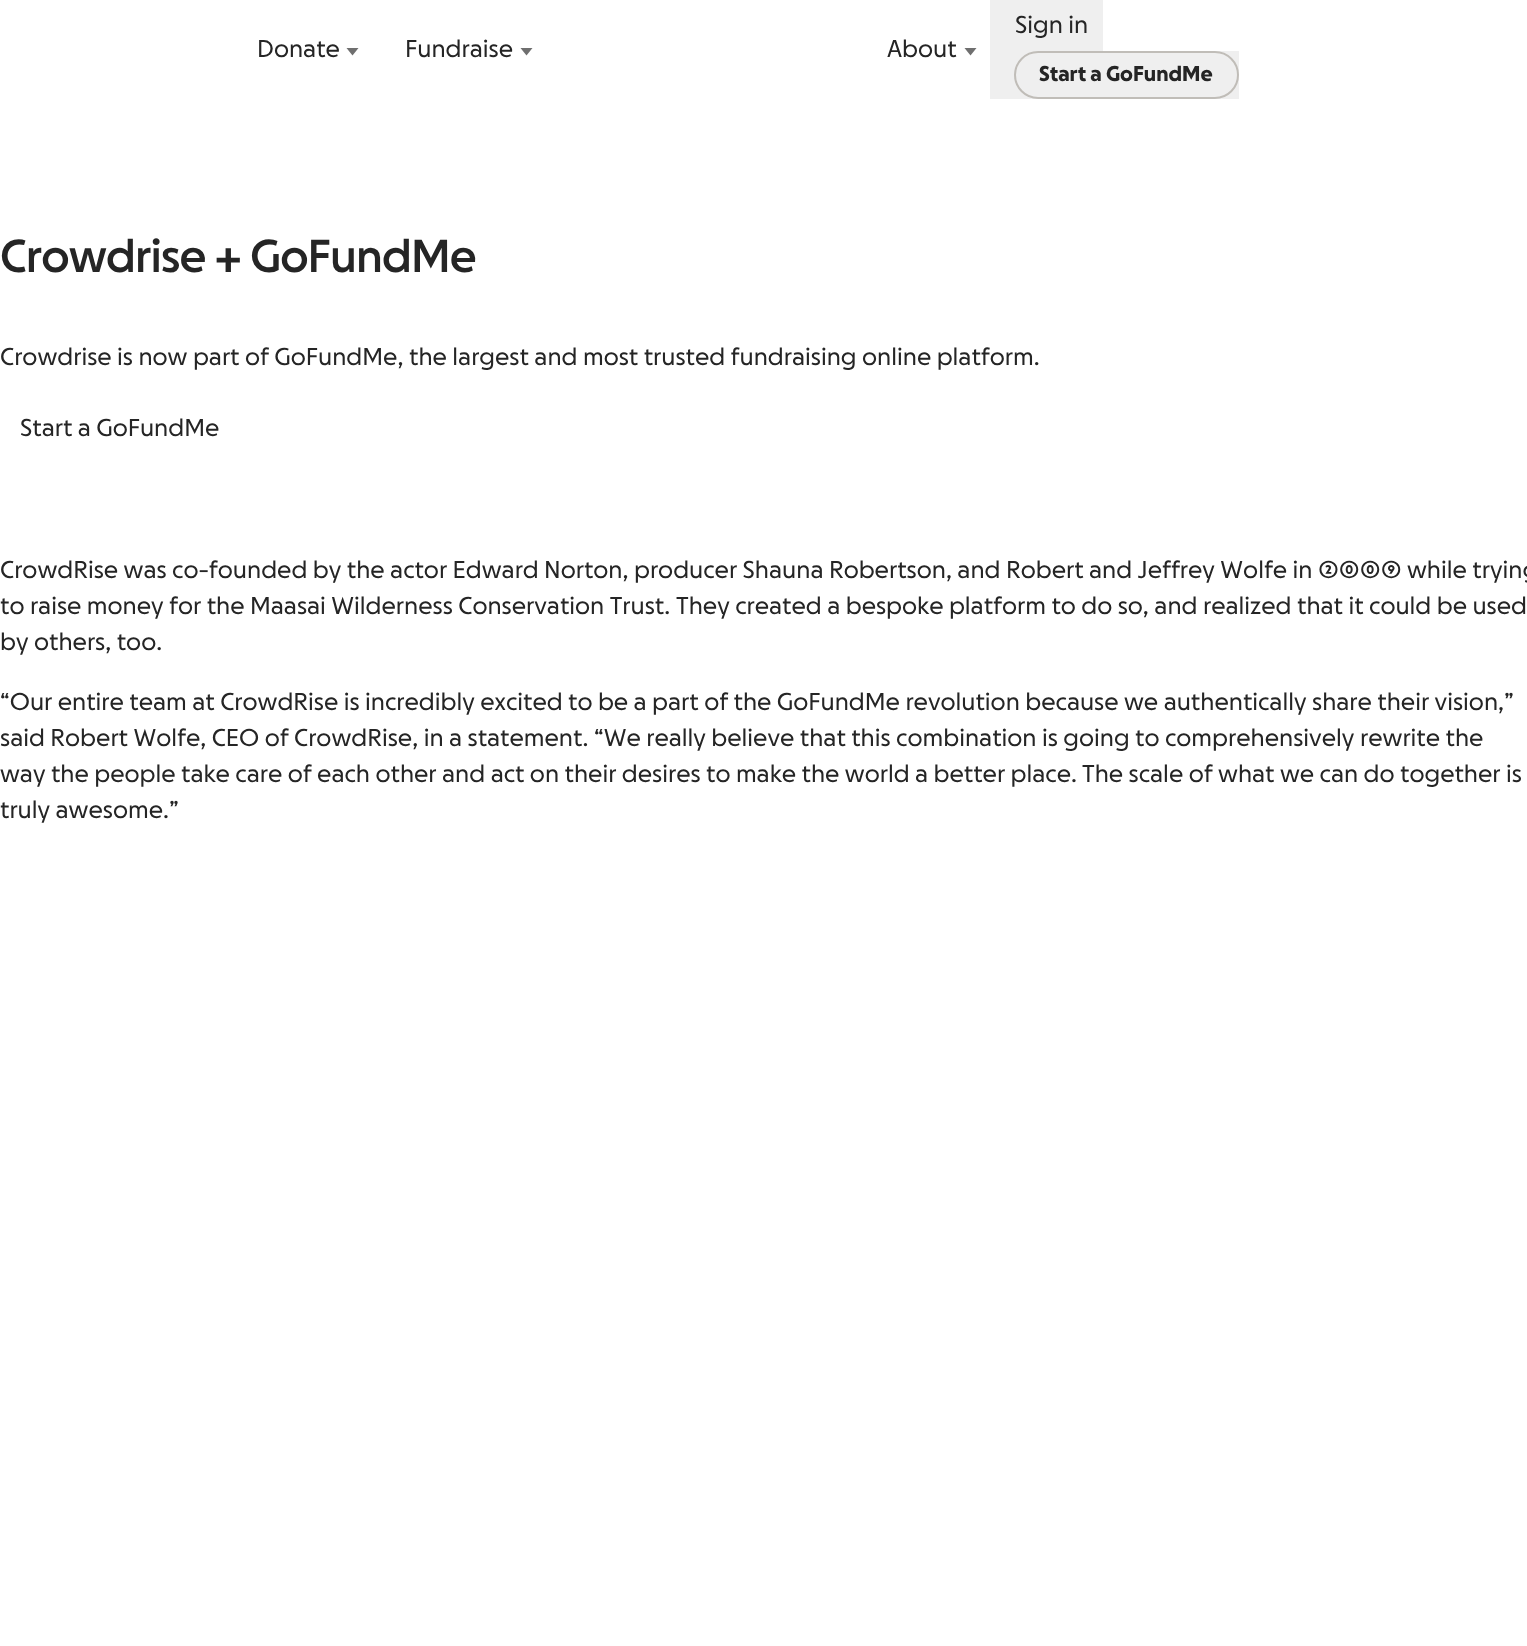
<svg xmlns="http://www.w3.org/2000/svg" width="1527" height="1646">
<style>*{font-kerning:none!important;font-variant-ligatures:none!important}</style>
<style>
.a{font:24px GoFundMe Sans;fill:#252525}
.b{font:bold 21px GoFundMe Sans;fill:#252525}
.c{font:500 45.6px GoFundMe Sans;letter-spacing:-0.9px;fill:#252525}
.d{font:24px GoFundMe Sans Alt;fill:#252525}
</style>
<rect width="100%" height="100%" fill="#fff"/>
<path fill="#6f6f6f" d="M346.5 48h12l-6 7.5z"/>
<path fill="#6f6f6f" d="M520.5 48h12l-6 7.5z"/>
<path fill="#6f6f6f" d="M964.5 48h12l-6 7.5z"/>
<path fill="#efefef" d="M990 0h113v51H990z"/>
<path fill="#efefef" d="M990 51h249v48H990z"/>
<rect fill="none" stroke="#c0bdb8" stroke-width="2" x="1015" y="52" width="223" height="46" rx="23"/>
<text class="a" x="257" y="57">Donate</text>
<text class="a" x="405" y="57">Fundraise</text>
<text class="a" x="887" y="57">About</text>
<text class="a" x="1015" y="33">Sign in</text>
<text class="b" x="1039" y="81">Start a GoFundMe</text>
<text class="c" x="0" y="272">Crowdrise + GoFundMe</text>
<text class="a" x="0" y="365">Crowdrise is now part of GoFundMe,</text>
<text class="a" x="409" y="365">the largest and most trusted fundraising online platform.</text>
<text class="a" x="20" y="436">Start a GoFundMe</text>
<text class="d" x="0" y="578">CrowdRise was co-founded by the actor Edward</text>
<text class="d" x="544" y="578">Norton, producer Shauna Robertson, and Robert</text>
<text class="d" x="1089" y="578">and Jeffrey Wolfe in 2009 while trying</text>
<text class="a" x="0" y="614">to raise money for the Maasai Wilderness Conservation Trust.</text>
<text class="a" x="676" y="614">They created a bespoke platform to do so, and realized</text>
<text class="a" x="1297" y="614">that it could be used</text>
<text class="a" x="0" y="650">by others, too.</text>
<text class="a" x="0" y="710">“Our entire team at CrowdRise is incredibly excited</text>
<text class="a" x="568" y="710">to be a part of the GoFundMe revolution because we authentically</text>
<text class="a" x="1312" y="710">share their vision,”</text>
<text class="a" x="0" y="746">said Robert Wolfe, CEO of</text>
<text class="a" x="294" y="746">CrowdRise, in a statement.</text>
<text class="a" x="594" y="746">“We really believe that this combination is going to comprehensively</text>
<text class="a" x="1360" y="746">rewrite the</text>
<text class="a" x="0" y="782">way the people take care of each other and act on their desires</text>
<text class="a" x="706" y="782">to make the world a better place.</text>
<text class="a" x="1082" y="782">The scale of what we can do together is</text>
<text class="a" x="0" y="818">truly awesome.”</text>
</svg>
